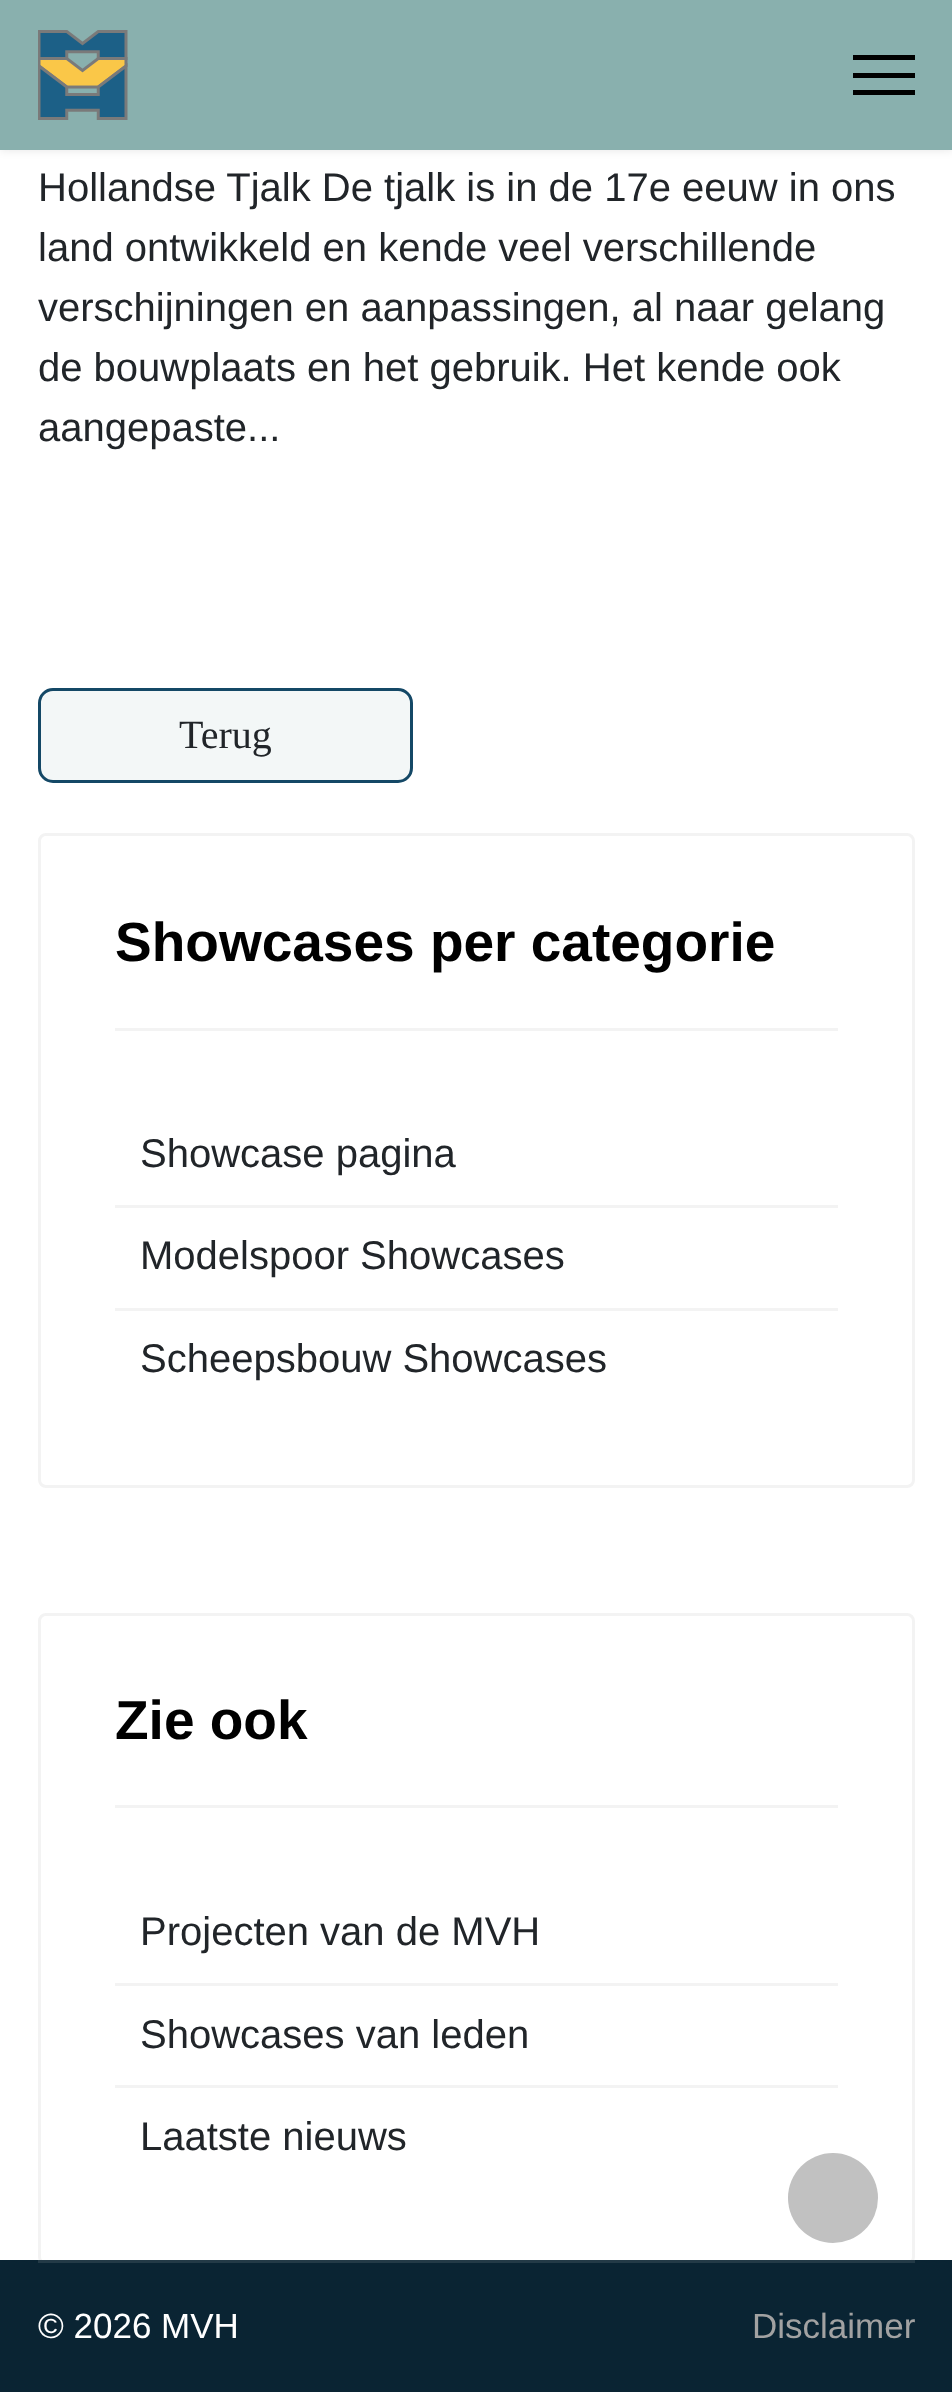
<svg xmlns="http://www.w3.org/2000/svg" width="952" height="2392">
<style>
.a{font:40px Liberation Sans;fill:#212529}
.b{font:40px Liberation Serif;fill:#212529}
.c{font:bold 55px Liberation Sans;fill:#000}
.d{font:35px Liberation Sans;fill:#fff}
.e{font:35px Liberation Sans;fill:#a2a2a2}
</style>
<rect width="100%" height="100%" fill="#fff"/>
<path fill="#0000001a" filter="blur(5px)" d="M0 0h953v150H0z"/>
<path fill="#89b0ae" d="M0 0h952v150H0z"/>
<image href="1.png" x="38" y="30" width="90" height="90"/>
<path fill="#000" d="M853 55h62v5H853z"/>
<path fill="#000" d="M853 73h62v5H853z"/>
<path fill="#000" d="M853 90h62v5H853z"/>
<rect fill="#f3f7f7" stroke="#144866" stroke-width="3" x="39.5" y="689.5" width="372" height="92" rx="13.5"/>
<rect fill="none" stroke="#f3f3f3" stroke-width="3" x="39.5" y="834.5" width="874" height="652" rx="6.5"/>
<path fill="#f3f3f3" d="M115 1028h723v3H115z"/>
<path fill="#f3f3f3" d="M115 1205h723v3H115z"/>
<path fill="#f3f3f3" d="M115 1308h723v3H115z"/>
<rect fill="none" stroke="#f3f3f3" stroke-width="3" x="39.5" y="1614.5" width="874" height="649" rx="6.5"/>
<path fill="#f3f3f3" d="M115 1805h723v3H115z"/>
<path fill="#f3f3f3" d="M115 1983h723v3H115z"/>
<path fill="#f3f3f3" d="M115 2085h723v3H115z"/>
<path fill="#0a2433" d="M0 2260h952v132H0z"/>
<path fill="#233a47" d="M38 2260h877v3H38z"/>
<circle fill="#c1c1c1" cx="833" cy="2198" r="45"/>
<text class="a" x="38" y="201">Hollandse Tjalk De tjalk is in de 17e eeuw in ons</text>
<text class="a" x="38" y="261">land ontwikkeld en kende veel verschillende</text>
<text class="a" x="38" y="321">verschijningen en aanpassingen, al naar gelang</text>
<text class="a" x="38" y="381">de bouwplaats en het gebruik. Het kende ook</text>
<text class="a" x="38" y="441">aangepaste...</text>
<text class="b" x="179" y="748">Terug</text>
<text class="c" x="115" y="961">Showcases per categorie</text>
<text class="a" x="140" y="1167">Showcase pagina</text>
<text class="a" x="140" y="1269">Modelspoor Showcases</text>
<text class="a" x="140" y="1372">Scheepsbouw Showcases</text>
<text class="c" x="115" y="1739">Zie ook</text>
<text class="a" x="140" y="1945">Projecten van de MVH</text>
<text class="a" x="140" y="2048">Showcases van leden</text>
<text class="a" x="140" y="2150">Laatste nieuws</text>
<text class="d" x="38" y="2338">© 2026 MVH</text>
<text class="e" x="752" y="2338">Disclaimer</text>
</svg>
